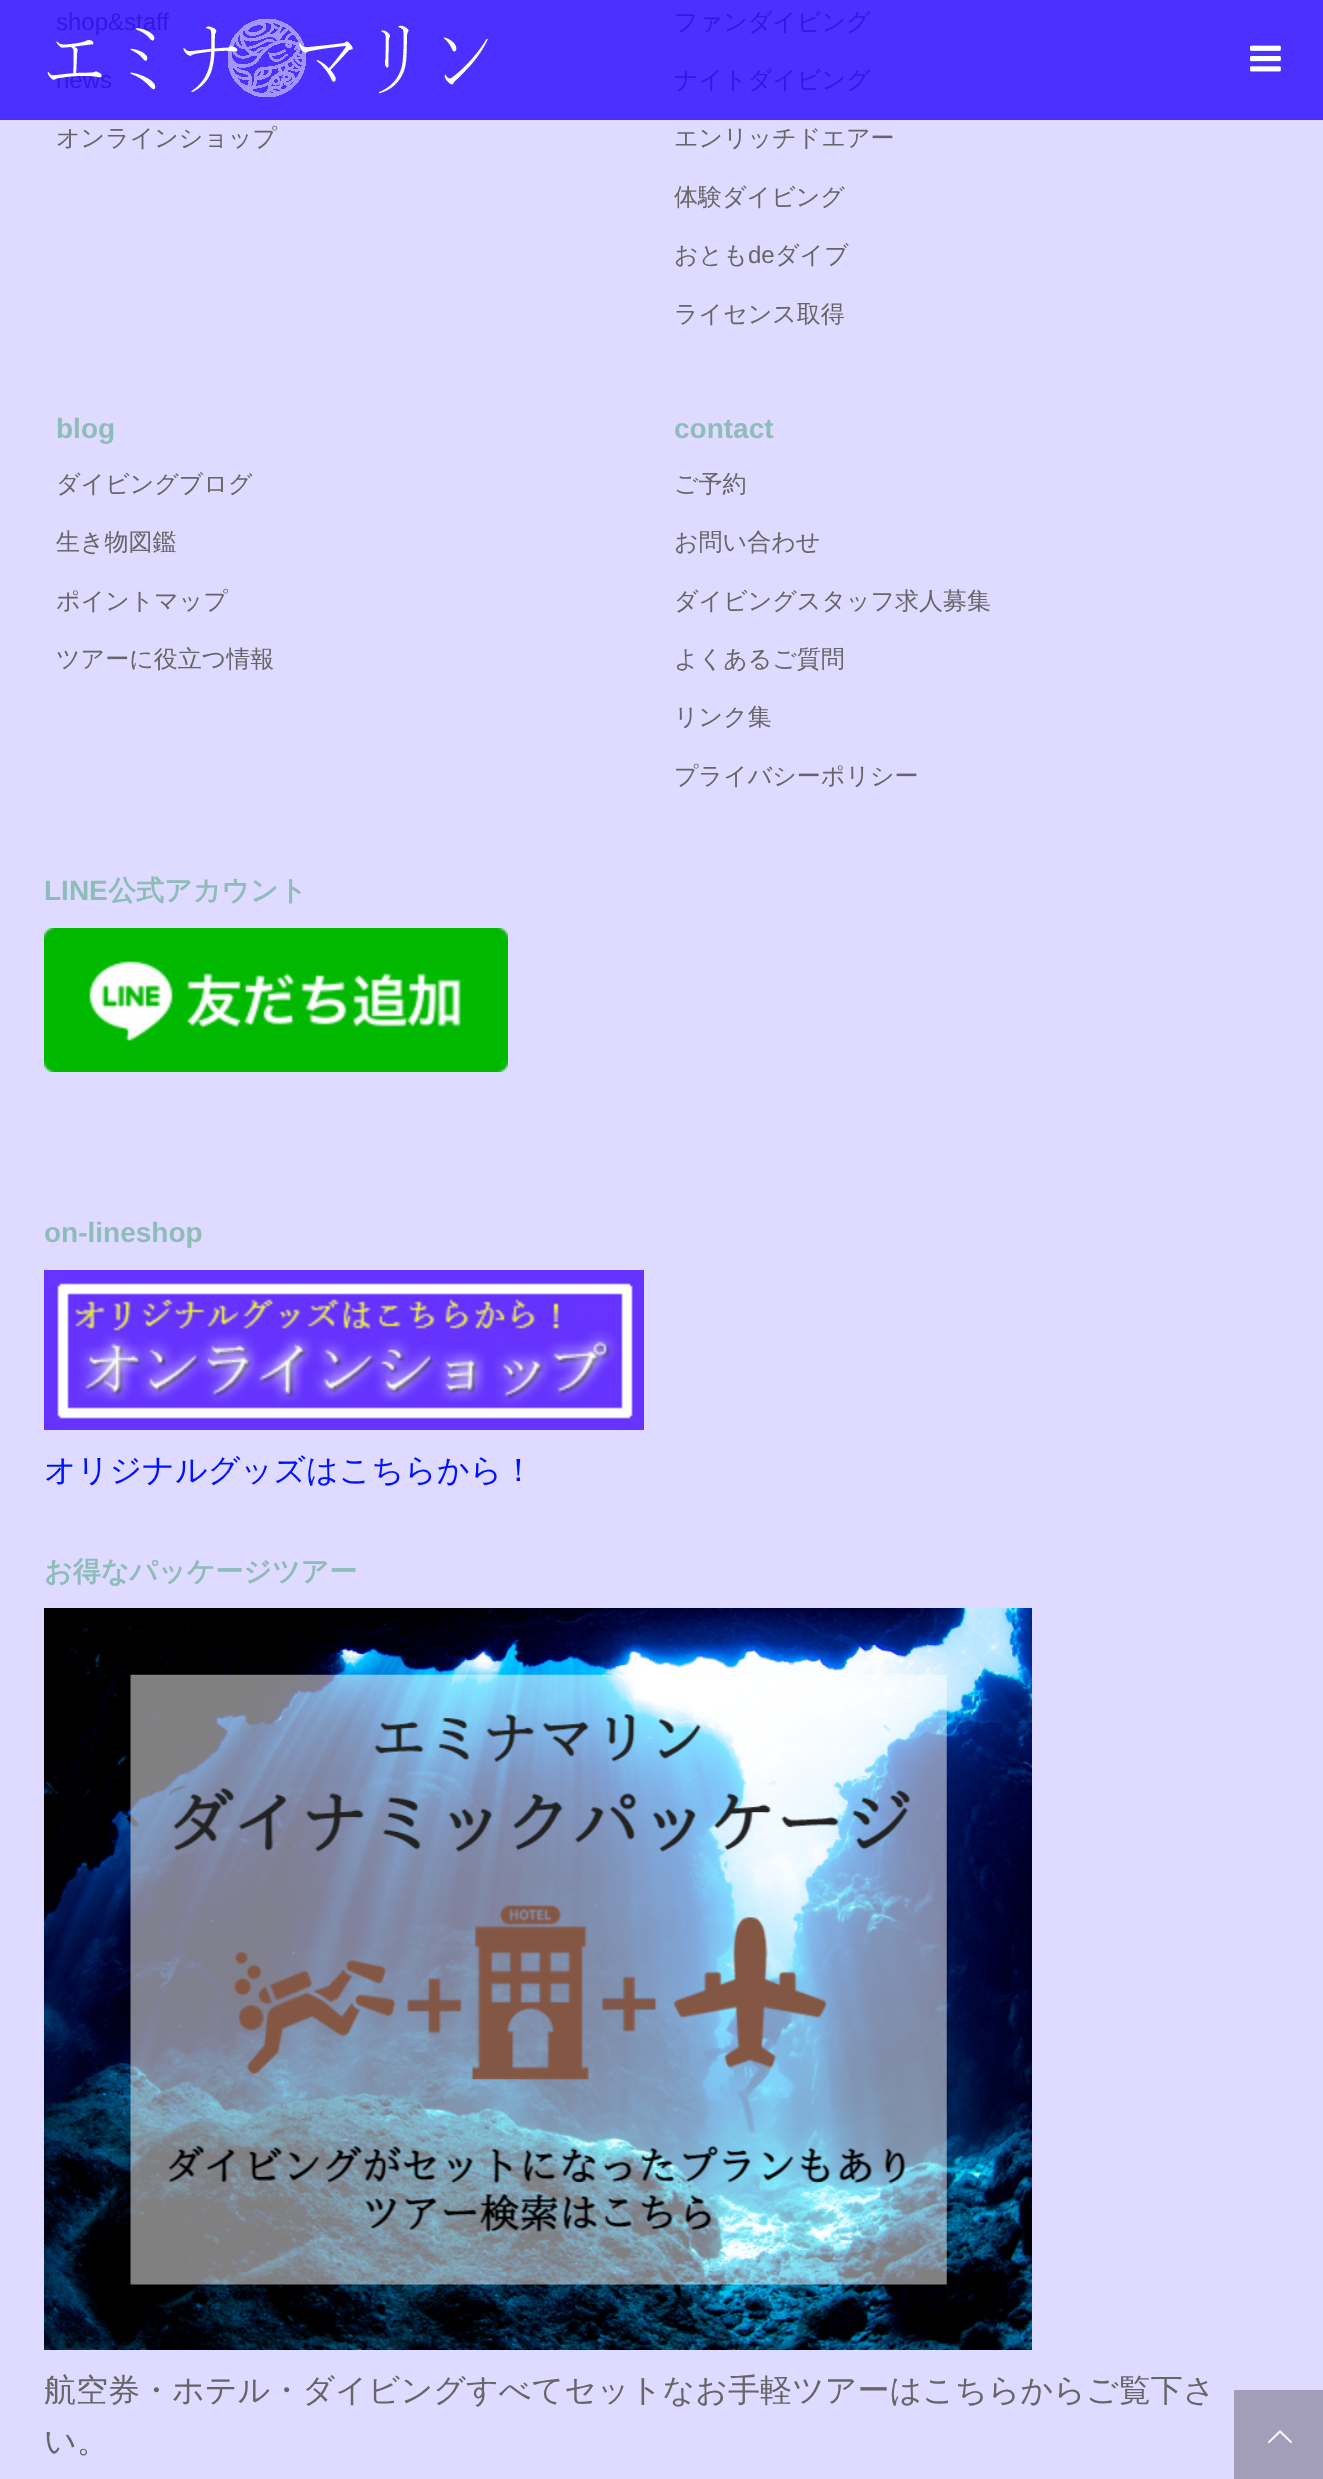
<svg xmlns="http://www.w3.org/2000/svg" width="1323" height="2479">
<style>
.a{font:24px Liberation Sans;fill:#3318e0}
.b{font:500 24px WenQuanYi Zen Hei;fill:#666}
.c{font:500 24px WenQuanYi Zen Hei;fill:#3318e0}
.d{font:24px Liberation Sans;fill:#666}
.e{font:bold 28px Liberation Sans;fill:#8ebdb8}
.f{font:bold 28px WenQuanYi Zen Hei;fill:#8ebdb8}
.g{font:500 32px WenQuanYi Zen Hei;fill:#01f}
.h{font:500 32px WenQuanYi Zen Hei;fill:#666}
</style>
<rect width="100%" height="100%" fill="#dfdaff"/>
<path fill="#4b30ff" d="M0 0h1323v120H0z"/>
<image href="1.png" x="44" y="928" width="464" height="144"/>
<image href="2.png" x="44" y="1270" width="600" height="160"/>
<image href="3.png" x="44" y="1608" width="988" height="742"/>
<image href="5.png" x="1250" y="45" width="31" height="27"/>
<path fill="#a29eb9" d="M1234 2390h89v89H1234z"/>
<image href="6.png" x="1268" y="2430" width="24" height="14"/>
<text class="a" x="56" y="30">shop&amp;staff</text>
<text class="a" x="56" y="88">news</text>
<text class="b" x="56" y="146">オンラインショップ</text>
<text class="c" x="674" y="30">ファンダイビング</text>
<text class="c" x="674" y="88">ナイトダイビング</text>
<text class="b" x="674" y="146">エンリッチドエアー</text>
<text class="b" x="674" y="205">体験ダイビング</text>
<text class="b" x="674" y="263">おとも</text>
<text class="d" x="748" y="263">de</text>
<text class="b" x="775" y="263">ダイブ</text>
<text class="b" x="674" y="322">ライセンス取得</text>
<text class="e" x="56" y="438">blog</text>
<text class="b" x="56" y="492">ダイビングブログ</text>
<text class="b" x="56" y="550">生き物図鑑</text>
<text class="b" x="56" y="609">ポイントマップ</text>
<text class="b" x="56" y="667">ツアーに役立つ情報</text>
<text class="e" x="674" y="438">contact</text>
<text class="b" x="674" y="492">ご予約</text>
<text class="b" x="674" y="550">お問い合わせ</text>
<text class="b" x="674" y="609">ダイビングスタッフ求人募集</text>
<text class="b" x="674" y="667">よくあるご質問</text>
<text class="b" x="674" y="725">リンク集</text>
<text class="b" x="674" y="784">プライバシーポリシー</text>
<text class="e" x="44" y="900">LINE</text>
<text class="f" x="108" y="900">公式アカウント</text>
<text class="e" x="44" y="1242">on-lineshop</text>
<text class="g" x="44" y="1481">オリジナルグッズはこちらから！</text>
<text class="f" x="44" y="1581">お得なパッケージツアー</text>
<text class="h" x="44" y="2401">航空券・ホテル・ダイビングすべてセットなお手軽ツアーはこちらからご覧下さ</text>
<text class="h" x="44" y="2452">い。</text>
<image href="4.png" x="47" y="19" width="441" height="78"/>
</svg>
